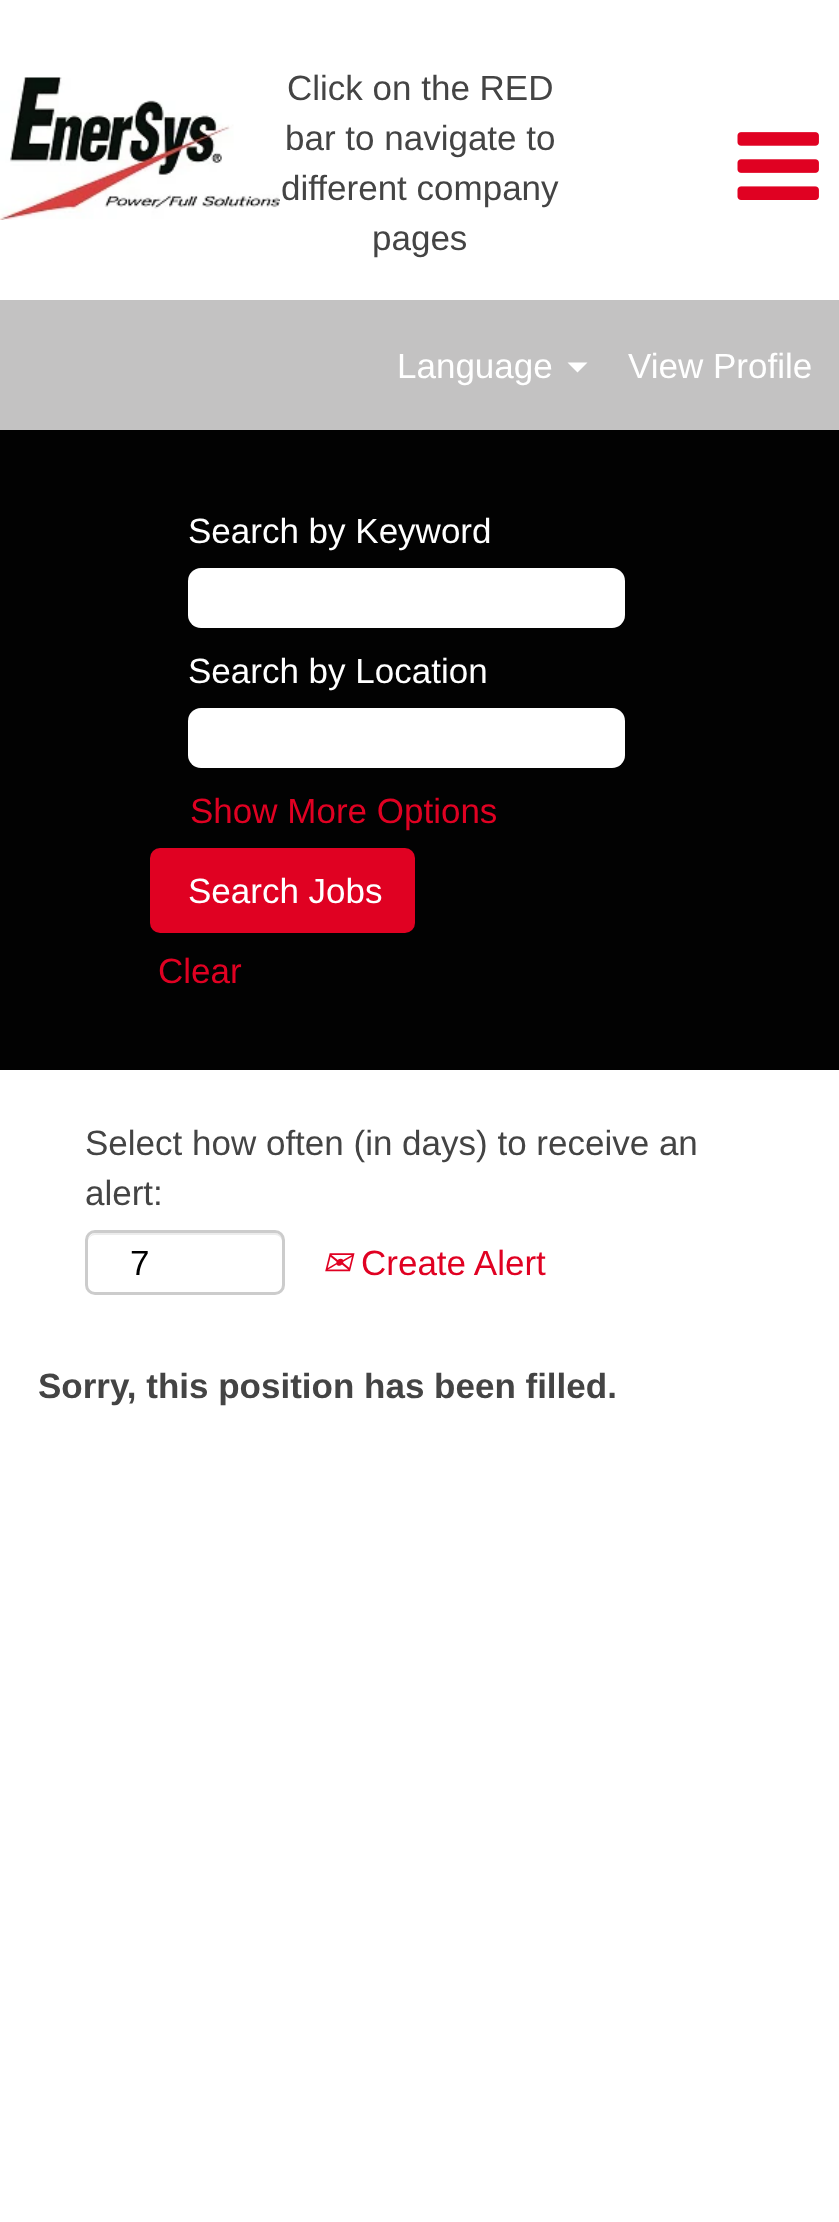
<svg xmlns="http://www.w3.org/2000/svg" width="839" height="2222">
<style>
.a{font:35px Liberation Sans;fill:#444}
.b{font:35px Liberation Sans;fill:#fff}
.c{font:35px Liberation Sans;fill:#e00122}
.d{font:35px Liberation Sans;fill:#000}
.e{font:italic 35px DejaVu Sans;fill:#e00122}
.f{font:bold 35px Liberation Sans;fill:#444}
</style>
<rect width="100%" height="100%" fill="#fff"/>
<image href="1.png" x="0" y="77" width="280" height="143"/>
<image href="2.png" x="737" y="132" width="82" height="68"/>
<path fill="#c3c2c2" d="M0 300h839v130H0z"/>
<path fill="#fff" d="M567.5 362.5h20l-10 10z"/>
<path fill="#020202" d="M0 430h839v640H0z"/>
<rect fill="#fff" x="188" y="568" width="437" height="60" rx="13"/>
<rect fill="#fff" x="188" y="708" width="437" height="60" rx="13"/>
<rect fill="#e00122" x="150" y="848" width="265" height="85" rx="10"/>
<path fill="#ececec" d="M95 1235h180c4 0 7 3 7 7v47c1-1 1-3 1-4v-44c0-4-4-8-8-8h-179c-4 0-8 4-8 8v1c0-4 3-7 7-7z"/>
<rect fill="none" stroke="#ccc" stroke-width="3" x="86.5" y="1231.5" width="197" height="62" rx="8.5"/>
<text class="a" x="287" y="100">Click on the RED</text>
<text class="a" x="285" y="150">bar to navigate to</text>
<text class="a" x="281" y="200">different company</text>
<text class="a" x="372" y="250">pages</text>
<text class="b" x="397" y="378">Language</text>
<text class="b" x="628" y="378">View Profile</text>
<text class="b" x="188" y="543">Search by Keyword</text>
<text class="b" x="188" y="683">Search by Location</text>
<text class="c" x="190" y="823">Show More Options</text>
<text class="b" x="188" y="903">Search Jobs</text>
<text class="c" x="158" y="983">Clear</text>
<text class="a" x="85" y="1155">Select how often (in days) to receive an</text>
<text class="a" x="85" y="1205">alert:</text>
<text class="d" x="130" y="1275">7</text>
<text class="e" x="322" y="1275">✉</text>
<text class="c" x="361" y="1275">Create Alert</text>
<text class="f" x="38" y="1398">Sorry, this position has been filled.</text>
</svg>
